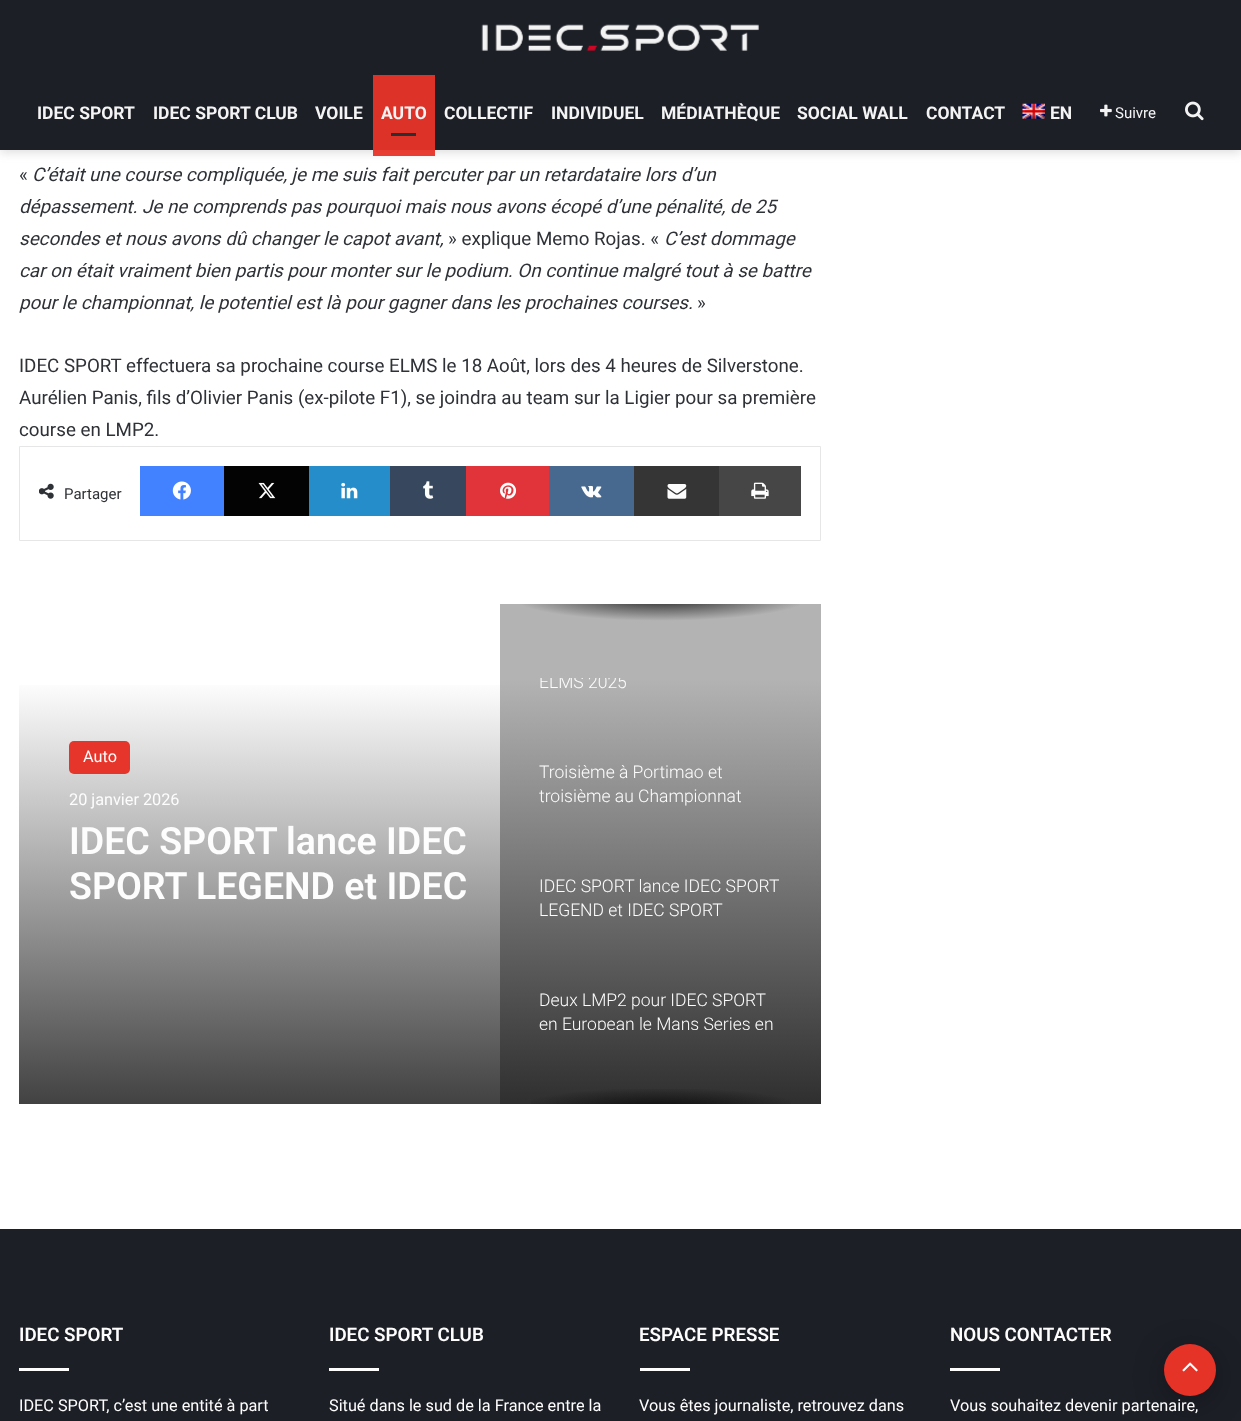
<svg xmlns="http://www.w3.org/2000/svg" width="1241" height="1421">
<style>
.a{font:bold 17.5px Roboto;fill:#f4f4f4}
.b{font:15px Roboto;fill:#f4f4f4}
.c{font:18.75px Roboto;fill:#2e3136}
.d{font:italic 18.75px Roboto;fill:#2e3136}
.e{font:15px Roboto;fill:#2e3136}
.f{font:16.25px Roboto;fill:#fdfdfd}
.g{font:600 37.5px Roboto;fill:#fdfdfd}
.h{font:300 17.5px Roboto;fill:#fdfdfd}
.i{font:600 18.75px Roboto;fill:#fdfdfd}
</style>
<defs>
<linearGradient id="g1" gradientUnits="userSpaceOnUse" x1="420" y1="679" x2="420" y2="1104"><stop offset="0" stop-color="#fff"/><stop offset="1" stop-color="#424242"/></linearGradient>
<linearGradient id="g2" gradientUnits="userSpaceOnUse" x1="420" y1="679" x2="420" y2="1104"><stop offset="0" stop-color="#b3b3b3"/><stop offset="1" stop-color="#2f2f2f"/></linearGradient>
<radialGradient id="g3" gradientUnits="userSpaceOnUse" cx="0" cy="0" r="1" gradientTransform="matrix(227 0 0 35 661 598)"><stop offset="0" stop-color="#262626"/><stop offset="0.65" stop-color="#b3b3b3"/><stop offset="1" stop-color="#b3b3b3"/></radialGradient>
<radialGradient id="g4" gradientUnits="userSpaceOnUse" cx="0" cy="0" r="1" gradientTransform="matrix(227 0 0 35 661 1110)"><stop offset="0" stop-color="#030303" stop-opacity="0.8"/><stop offset="0.65" stop-color="#030303" stop-opacity="0"/><stop offset="1" stop-color="#e5e5e5" stop-opacity="0"/></radialGradient>
<clipPath id="clip1"><path d="M539 678h244v17H539z"/></clipPath>
<clipPath id="clip2"><path d="M539 989h244v41H539z"/></clipPath>
</defs>
<rect width="100%" height="100%" fill="#fff"/>
<path fill="#b3b3b3" d="M500 623h321v56H500z"/>
<path fill="#63636333" filter="blur(5px)" d="M0 3h1241v150H0z"/>
<path fill="#1d1f27" d="M0 0h1241v150H0z"/>
<image href="1.png" x="481" y="24" width="278" height="27"/>
<path fill="#e63328f2" d="M373 150h62v6H373z"/>
<path fill="#dc3228" d="M373 75h62v75H373z"/>
<path fill="#2b2e33" d="M391 133h25v3H391z"/>
<image href="2.png" x="1022" y="103" width="23" height="16"/>
<image href="3.png" x="1100" y="104" width="12" height="13"/>
<image href="4.png" x="1185" y="101" width="19" height="20"/>
<path fill="none" stroke="#e6e6e6" d="M19.5 446.5h801v94H19.5z"/>
<image href="5.png" x="39" y="483" width="15" height="16"/>
<path fill="#4281ff" d="M140 466h84v50H140z"/>
<image href="6.png" x="172" y="481" width="19" height="19"/>
<path fill="#030303" d="M224 466h85v50H224z"/>
<image href="7.png" x="258" y="482" width="18" height="17"/>
<path fill="#258dc9" d="M309 466h81v50H309z"/>
<image href="8.png" x="341" y="482" width="17" height="17"/>
<path fill="#37485e" d="M390 466h76v50H390z"/>
<image href="9.png" x="423" y="481" width="11" height="18"/>
<path fill="#e1333a" d="M466 466h83v50H466z"/>
<image href="10.png" x="500" y="482" width="17" height="17"/>
<path fill="#47688f" d="M549 466h85v50H549z"/>
<image href="11.png" x="581" y="485" width="21" height="13"/>
<path fill="#353535" d="M634 466h85v50H634z"/>
<image href="12.png" x="667" y="484" width="20" height="15"/>
<path fill="#464646" d="M719 466h82v50H719z"/>
<image href="13.png" x="751" y="482" width="18" height="17"/>
<path fill="url(#g1)" d="M19 685h481v419H19z"/>
<path fill="url(#g2)" d="M500 679h321v425H500z"/>
<rect fill="#e6352a" x="69" y="741" width="61" height="33" rx="5"/>
<path fill="url(#g3)" d="M500 604h321v19H500z"/>
<path fill="url(#g4)" d="M531 1089h260v15H531z"/>
<path fill="#1d1f27" d="M0 1229h1241v192H0z"/>
<rect fill="#0000004d" filter="blur(15.5px)" x="1164" y="1350" width="52" height="53" rx="26"/>
<circle fill="#e63328" cx="1190" cy="1370" r="26"/>
<image href="14.png" x="1182" y="1362" width="16" height="10"/>
<path fill="#fdfdfd" d="M19 1368h50v3H19z"/>
<path fill="#fdfdfd" d="M329 1368h50v3H329z"/>
<path fill="#fdfdfd" d="M640 1368h50v3H640z"/>
<path fill="#fdfdfd" d="M950 1368h50v3H950z"/>
<text class="a" x="37" y="119">IDEC SPORT</text>
<text class="a" x="153" y="119">IDEC SPORT CLUB</text>
<text class="a" x="315" y="119">VOILE</text>
<text class="a" x="381" y="119">AUTO</text>
<text class="a" x="444" y="119">COLLECTIF</text>
<text class="a" x="551" y="119">INDIVIDUEL</text>
<text class="a" x="661" y="119">MÉDIATHÈQUE</text>
<text class="a" x="797" y="119">SOCIAL WALL</text>
<text class="a" x="926" y="119">CONTACT</text>
<text class="a" x="1050" y="119">EN</text>
<text class="b" x="1115" y="118">Suivre</text>
<text class="c" x="19" y="181">«</text>
<text class="d" x="32" y="181">C’était une course compliquée, je me suis fait percuter par un retardataire lors d’un</text>
<text class="d" x="19" y="213">dépassement. Je ne comprends pas pourquoi mais nous avons écopé d’une pénalité, de 25</text>
<text class="d" x="19" y="245">secondes et nous avons dû changer le capot avant,</text>
<text class="c" x="448" y="245">» explique Memo Rojas. «</text>
<text class="d" x="664" y="245">C’est dommage</text>
<text class="d" x="19" y="277">car on était vraiment bien partis pour monter sur le podium. On continue malgré tout à se battre</text>
<text class="d" x="19" y="309">pour le championnat, le potentiel est là pour gagner dans les prochaines courses.</text>
<text class="c" x="697" y="309">»</text>
<text class="c" x="19" y="372">IDEC SPORT effectuera sa prochaine course ELMS le 18 Août, lors des 4 heures de Silverstone.</text>
<text class="c" x="19" y="404">Aurélien Panis, fils d’Olivier Panis (ex-pilote F1), se joindra au team sur la Ligier pour sa première</text>
<text class="c" x="19" y="436">course en LMP2.</text>
<text class="e" x="64" y="499">Partager</text>
<text class="f" x="83" y="762">Auto</text>
<text class="f" x="69" y="805">20 janvier 2026</text>
<text class="g" x="69" y="854">IDEC SPORT lance IDEC</text>
<text class="g" x="69" y="899">SPORT LEGEND et IDEC</text>
<g clip-path="url(#clip1)">
<text class="h" x="539" y="688">ELMS 2025</text>
</g>
<text class="h" x="539" y="778">Troisième à Portimao et</text>
<text class="h" x="539" y="802">troisième au Championnat</text>
<text class="h" x="539" y="892">IDEC SPORT lance IDEC SPORT</text>
<text class="h" x="539" y="916">LEGEND et IDEC SPORT</text>
<text class="h" x="539" y="1006">Deux LMP2 pour IDEC SPORT</text>
<g clip-path="url(#clip2)">
<text class="h" x="539" y="1030">en European le Mans Series en</text>
</g>
<text class="i" x="19" y="1341">IDEC SPORT</text>
<text class="f" x="19" y="1411">IDEC SPORT, c’est une entité à part</text>
<text class="i" x="329" y="1341">IDEC SPORT CLUB</text>
<text class="f" x="329" y="1411">Situé dans le sud de la France entre la</text>
<text class="i" x="639" y="1341">ESPACE PRESSE</text>
<text class="f" x="639" y="1411">Vous êtes journaliste, retrouvez dans</text>
<text class="i" x="950" y="1341">NOUS CONTACTER</text>
<text class="f" x="950" y="1411">Vous souhaitez devenir partenaire,</text>
</svg>
